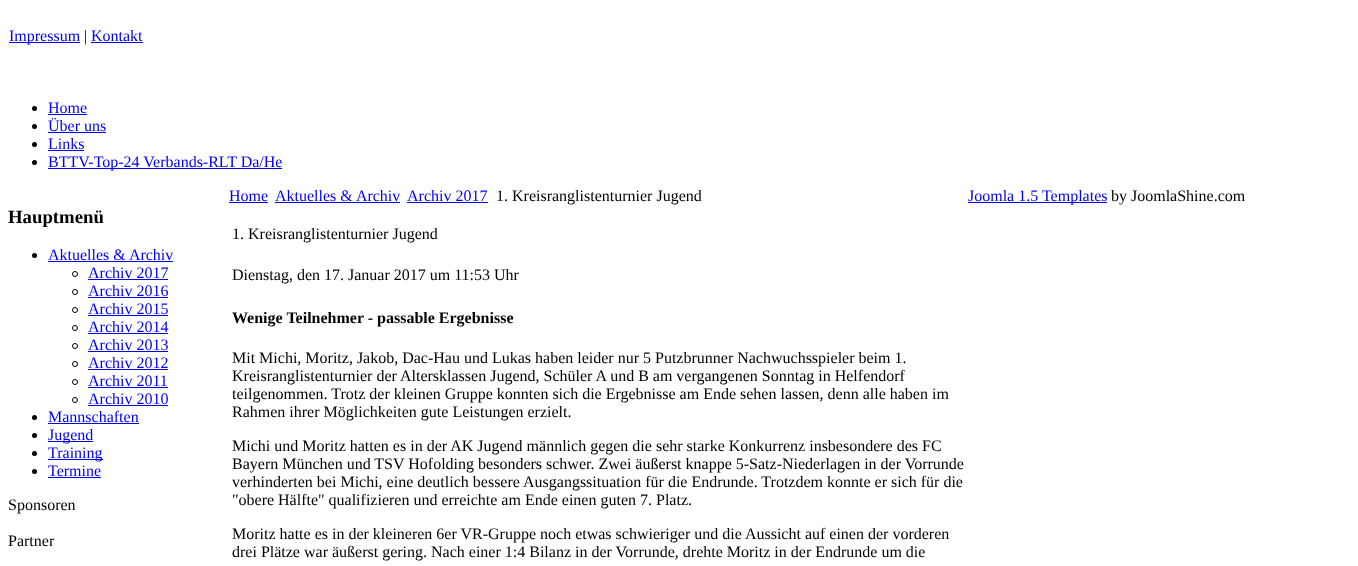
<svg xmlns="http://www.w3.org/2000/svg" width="1358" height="566">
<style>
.a{font:16px Liberation Serif;fill:#00e}
.b{font:16px Liberation Serif;fill:#000}
.c{font:bold 18.75px Liberation Serif;fill:#000}
.d{font:bold 16px Liberation Serif;fill:#000}
</style>
<rect width="100%" height="100%" fill="#fff"/>
<path fill="#00e" d="M9 42h71v1H9z"/>
<path fill="#00e" d="M91 42h52v1H91z"/>
<circle fill="#000" cx="34.5" cy="108.5" r="2.5"/>
<path fill="#00e" d="M48 114h39v1H48z"/>
<circle fill="#000" cx="34.5" cy="126.5" r="2.5"/>
<path fill="#00e" d="M48 132h58v1H48z"/>
<circle fill="#000" cx="34.5" cy="144.5" r="2.5"/>
<path fill="#00e" d="M48 150h36v1H48z"/>
<circle fill="#000" cx="34.5" cy="162.5" r="2.5"/>
<path fill="#00e" d="M48 168h234v1H48z"/>
<circle fill="#000" cx="34.5" cy="255.5" r="2.5"/>
<path fill="#00e" d="M48 261h125v1H48z"/>
<circle fill="none" stroke="#000" cx="75" cy="274" r="2.5"/>
<path fill="#00e" d="M88 279h80v1H88z"/>
<circle fill="none" stroke="#000" cx="75" cy="292" r="2.5"/>
<path fill="#00e" d="M88 297h80v1H88z"/>
<circle fill="none" stroke="#000" cx="75" cy="310" r="2.5"/>
<path fill="#00e" d="M88 315h80v1H88z"/>
<circle fill="none" stroke="#000" cx="75" cy="328" r="2.5"/>
<path fill="#00e" d="M88 333h80v1H88z"/>
<circle fill="none" stroke="#000" cx="75" cy="346" r="2.5"/>
<path fill="#00e" d="M88 351h80v1H88z"/>
<circle fill="none" stroke="#000" cx="75" cy="364" r="2.5"/>
<path fill="#00e" d="M88 369h80v1H88z"/>
<circle fill="none" stroke="#000" cx="75" cy="382" r="2.5"/>
<path fill="#00e" d="M88 387h80v1H88z"/>
<circle fill="none" stroke="#000" cx="75" cy="400" r="2.5"/>
<path fill="#00e" d="M88 405h80v1H88z"/>
<circle fill="#000" cx="34.5" cy="417.5" r="2.5"/>
<path fill="#00e" d="M48 423h91v1H48z"/>
<circle fill="#000" cx="34.5" cy="435.5" r="2.5"/>
<path fill="#00e" d="M48 441h45v1H48z"/>
<circle fill="#000" cx="34.5" cy="453.5" r="2.5"/>
<path fill="#00e" d="M48 459h55v1H48z"/>
<circle fill="#000" cx="34.5" cy="471.5" r="2.5"/>
<path fill="#00e" d="M48 477h53v1H48z"/>
<path fill="#00e" d="M229 202h39v1H229z"/>
<path fill="#00e" d="M275 202h125v1H275z"/>
<path fill="#00e" d="M407 202h81v1H407z"/>
<path fill="#00e" d="M968 202h139v1H968z"/>
<text class="a" x="9" y="41">Impressum</text>
<text class="b" x="84" y="41">|</text>
<text class="a" x="91" y="41">Kontakt</text>
<text class="a" x="48" y="113">Home</text>
<text class="a" x="48" y="131">Über uns</text>
<text class="a" x="48" y="149">Links</text>
<text class="a" x="48" y="167">BTTV-Top-24 Verbands-RLT Da/He</text>
<text class="c" x="8" y="223">Hauptmenü</text>
<text class="a" x="48" y="260">Aktuelles &amp; Archiv</text>
<text class="a" x="88" y="278">Archiv 2017</text>
<text class="a" x="88" y="296">Archiv 2016</text>
<text class="a" x="88" y="314">Archiv 2015</text>
<text class="a" x="88" y="332">Archiv 2014</text>
<text class="a" x="88" y="350">Archiv 2013</text>
<text class="a" x="88" y="368">Archiv 2012</text>
<text class="a" x="88" y="386">Archiv 2011</text>
<text class="a" x="88" y="404">Archiv 2010</text>
<text class="a" x="48" y="422">Mannschaften</text>
<text class="a" x="48" y="440">Jugend</text>
<text class="a" x="48" y="458">Training</text>
<text class="a" x="48" y="476">Termine</text>
<text class="b" x="8" y="510">Sponsoren</text>
<text class="b" x="8" y="546">Partner</text>
<text class="a" x="229" y="201">Home</text>
<text class="a" x="275" y="201">Aktuelles &amp; Archiv</text>
<text class="a" x="407" y="201">Archiv 2017</text>
<text class="b" x="496" y="201">1. Kreisranglistenturnier Jugend</text>
<text class="b" x="232" y="239">1. Kreisranglistenturnier Jugend</text>
<text class="b" x="232" y="280">Dienstag, den 17. Januar 2017 um 11:53 Uhr</text>
<text class="d" x="232" y="323">Wenige Teilnehmer - passable Ergebnisse</text>
<text class="b" x="232" y="363">Mit Michi, Moritz, Jakob, Dac-Hau und Lukas haben leider nur 5 Putzbrunner Nachwuchsspieler beim 1.</text>
<text class="b" x="232" y="381">Kreisranglistenturnier der Altersklassen Jugend, Schüler A und B am vergangenen Sonntag in Helfendorf</text>
<text class="b" x="232" y="399">teilgenommen. Trotz der kleinen Gruppe konnten sich die Ergebnisse am Ende sehen lassen, denn alle haben im</text>
<text class="b" x="232" y="417">Rahmen ihrer Möglichkeiten gute Leistungen erzielt.</text>
<text class="b" x="232" y="451">Michi und Moritz hatten es in der AK Jugend männlich gegen die sehr starke Konkurrenz insbesondere des FC</text>
<text class="b" x="232" y="469">Bayern München und TSV Hofolding besonders schwer. Zwei äußerst knappe 5-Satz-Niederlagen in der Vorrunde</text>
<text class="b" x="232" y="487">verhinderten bei Michi, eine deutlich bessere Ausgangssituation für die Endrunde. Trotzdem konnte er sich für die</text>
<text class="b" x="232" y="505">"obere Hälfte" qualifizieren und erreichte am Ende einen guten 7. Platz.</text>
<text class="b" x="232" y="539">Moritz hatte es in der kleineren 6er VR-Gruppe noch etwas schwieriger und die Aussicht auf einen der vorderen</text>
<text class="b" x="232" y="557">drei Plätze war äußerst gering. Nach einer 1:4 Bilanz in der Vorrunde, drehte Moritz in der Endrunde um die</text>
<text class="a" x="968" y="201">Joomla 1.5 Templates</text>
<text class="b" x="1111" y="201">by JoomlaShine.com</text>
</svg>
